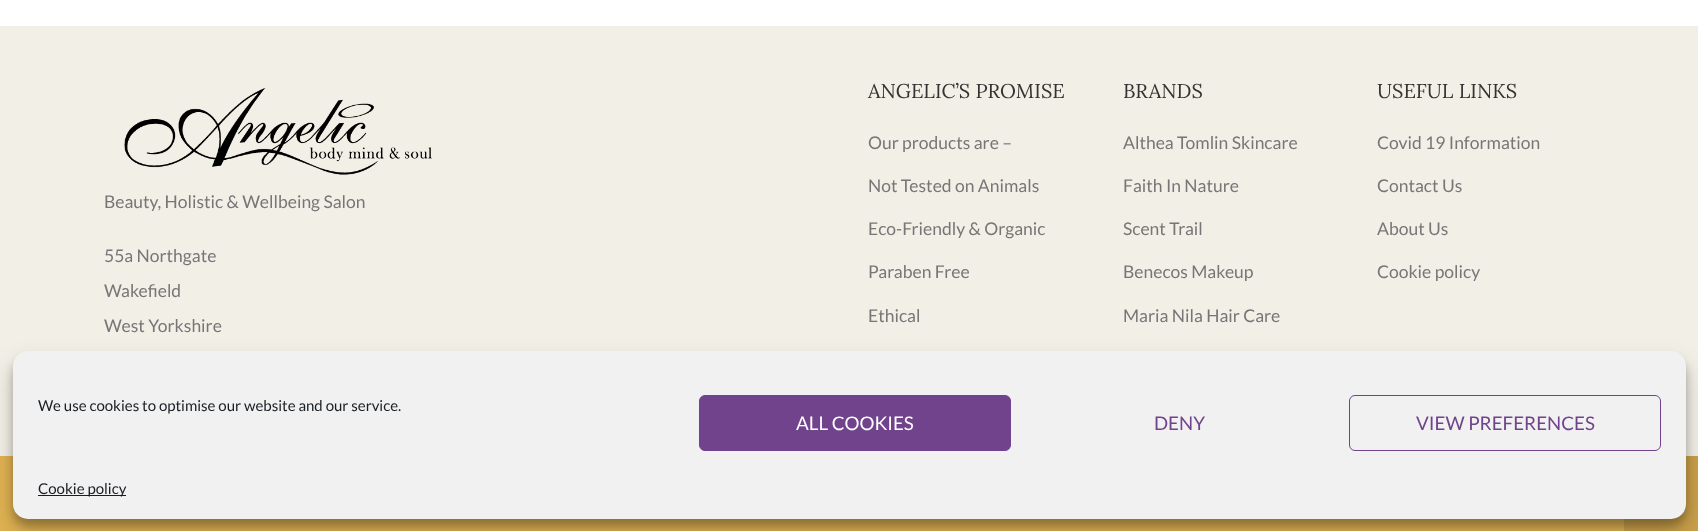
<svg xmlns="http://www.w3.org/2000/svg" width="1698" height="531">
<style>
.a{font:17.5px Lato;fill:#767676}
.b{font:20px Lora;fill:#333}
.c{font:15px Lato;fill:#191e23}
.d{font:18.75px Lato;fill:#fff}
.e{font:18.75px Lato;fill:#71438c}
</style>
<rect width="100%" height="100%" fill="#fff"/>
<path fill="#f2efe6" d="M0 26h1698v430H0z"/>
<image href="1.png" x="124" y="88" width="308" height="87"/>
<path fill="#e0b252" d="M0 456h1624v75H0z"/>
<path fill="#caa04a" d="M1624 456h74v75H1624z"/>
<rect fill="#0000003b" filter="blur(4px)" x="13" y="359" width="1673" height="167" rx="15"/>
<rect fill="#00000030" filter="blur(12.5px)" x="13" y="364" width="1673" height="167" rx="15"/>
<rect fill="#f1f1f1" x="13" y="351" width="1673" height="168" rx="15"/>
<rect fill="#71438c" stroke="#71438c" x="699.5" y="395.5" width="311" height="55" rx="5.5"/>
<rect fill="none" stroke="#71438c" x="1349.5" y="395.5" width="311" height="55" rx="5.5"/>
<path fill="#191e23" d="M38 495h88v1H38z"/>
<text class="a" x="104" y="208">Beauty, Holistic &amp; Wellbeing Salon</text>
<text class="a" x="104" y="262">55a Northgate</text>
<text class="a" x="104" y="297">Wakefield</text>
<text class="a" x="104" y="332">West Yorkshire</text>
<text class="b" x="868" y="98">ANGELIC’S PROMISE</text>
<text class="a" x="868" y="149">Our products are –</text>
<text class="a" x="868" y="192">Not Tested on Animals</text>
<text class="a" x="868" y="235">Eco-Friendly &amp; Organic</text>
<text class="a" x="868" y="278">Paraben Free</text>
<text class="a" x="868" y="322">Ethical</text>
<text class="b" x="1123" y="98">BRANDS</text>
<text class="a" x="1123" y="149">Althea Tomlin Skincare</text>
<text class="a" x="1123" y="192">Faith In Nature</text>
<text class="a" x="1123" y="235">Scent Trail</text>
<text class="a" x="1123" y="278">Benecos Makeup</text>
<text class="a" x="1123" y="322">Maria Nila Hair Care</text>
<text class="b" x="1377" y="98">USEFUL LINKS</text>
<text class="a" x="1377" y="149">Covid 19 Information</text>
<text class="a" x="1377" y="192">Contact Us</text>
<text class="a" x="1377" y="235">About Us</text>
<text class="a" x="1377" y="278">Cookie policy</text>
<text class="c" x="38" y="411">We use cookies to optimise our website and our service.</text>
<text class="d" x="796" y="430">ALL COOKIES</text>
<text class="e" x="1154" y="430">DENY</text>
<text class="e" x="1416" y="430">VIEW PREFERENCES</text>
<text class="c" x="38" y="494">Cookie policy</text>
</svg>
